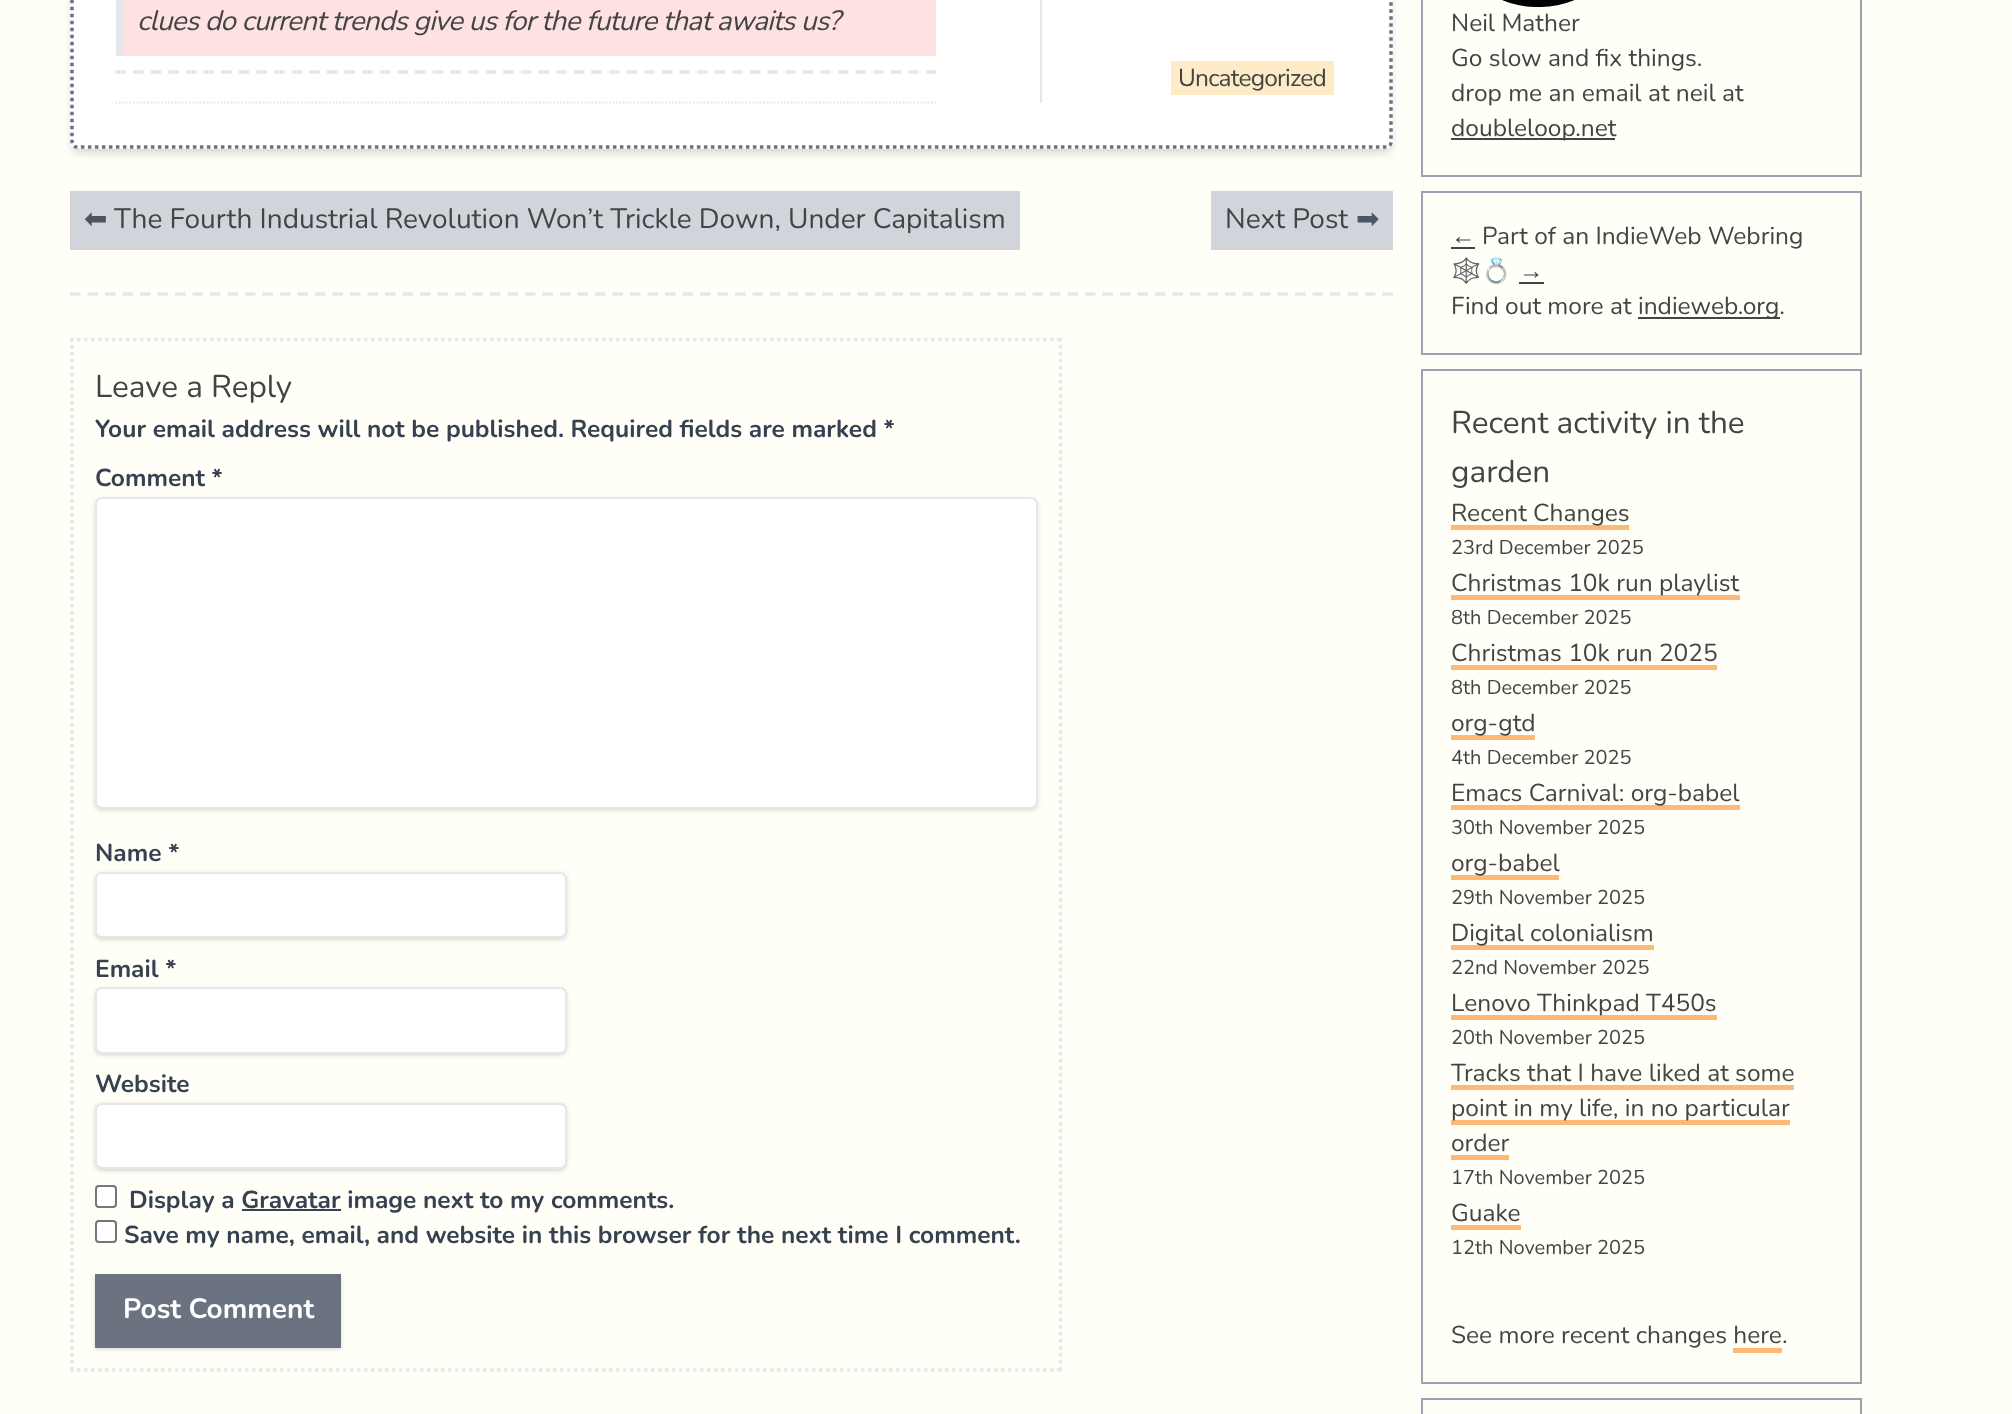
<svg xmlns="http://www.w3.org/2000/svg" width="2012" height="1414">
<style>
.a{font:italic 28px Nunito;letter-spacing:-0.8px;fill:#444}
.b{font:24.5px Nunito;letter-spacing:-0.8px;fill:#444}
.c{font:28px DejaVu Sans;fill:#4b5563}
.d{font:28px Nunito;fill:#444}
.e{font:31.5px Nunito;fill:#444}
.f{font:bold 24.5px Nunito;fill:#374151}
.g{font:bold 28px Nunito;fill:#fff}
.h{font:24.5px Nunito;fill:#444}
.i{font:24.5px Liberation Sans;fill:#444}
.j{font:24.5px Noto Color Emoji;fill:#444}
.k{font:20px Nunito;fill:#444}
</style>
<rect width="100%" height="100%" fill="#fffff8"/>
<rect fill="#0000001a" filter="blur(3.5px)" x="74" y="-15" width="1316" height="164" rx="4"/>
<rect fill="#0000001a" filter="blur(5px)" x="72" y="-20" width="1319" height="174" rx="5"/>
<rect fill="#fff" x="70" y="-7" width="1323" height="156" rx="7"/>
<path fill="none" stroke="#6b7280" stroke-width="3.5" stroke-dasharray="3.5 3.5" d="M77-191h1309c3 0 5 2.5 5 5.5v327.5c0 2.5-2 5-5 5h-1309c-3 0-5-2.5-5-5v-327.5c0-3 2-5.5 5-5.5z"/>
<path fill="none" stroke="#e5e7eb" stroke-width="3.5" stroke-dasharray="10.5 7.12" d="M115.5 72h820.5"/>
<path fill="#fee2e2" d="M123 0h813v56H123z"/>
<path fill="#e5e7eb" d="M116 0h7v56H116z"/>
<path fill="none" stroke="#e5e7eb" stroke-width="1.8" stroke-dasharray="1.75 1.75" d="M115.5 102.5h820.5"/>
<path fill="#e5e7eb" d="M1040 0h2v103H1040z"/>
<path fill="#feebc8" d="M1171 61h163v34H1171z"/>
<path fill="#d1d5db" d="M70 191h950v59H70z"/>
<path fill="#d1d5db" d="M1211 191h182v59H1211z"/>
<path fill="none" stroke="#e5e7eb" stroke-width="3.5" stroke-dasharray="10.5 7" d="M70 294h1323"/>
<path fill="none" stroke="#e5e7eb" stroke-width="3.5" stroke-dasharray="3.5 3.5" d="M70 339.5h992"/>
<path fill="none" stroke="#e5e7eb" stroke-width="3.5" stroke-dasharray="3.5 3.5" d="M1060.5 338v1034"/>
<path fill="none" stroke="#e5e7eb" stroke-width="3.5" stroke-dasharray="3.5 3.5" d="M70 1370h992"/>
<path fill="none" stroke="#e5e7eb" stroke-width="3.5" stroke-dasharray="3.5 3.5" d="M72 338v1034"/>
<rect fill="#0000001a" filter="blur(2px)" x="96" y="501" width="940" height="308" rx="5"/>
<rect fill="#0000001a" filter="blur(2.5px)" x="95" y="499" width="943" height="311" rx="7"/>
<rect fill="#fff" stroke="#e5e7eb" stroke-width="2" x="96" y="498" width="941" height="310" rx="6"/>
<rect fill="#0000001a" filter="blur(2px)" x="96" y="875" width="469" height="63" rx="5"/>
<rect fill="#0000001a" filter="blur(2.5px)" x="95" y="873" width="472" height="67" rx="7"/>
<rect fill="#fff" stroke="#e5e7eb" stroke-width="2" x="96" y="873" width="470" height="64" rx="6"/>
<rect fill="#0000001a" filter="blur(2px)" x="96" y="991" width="469" height="63" rx="5"/>
<rect fill="#0000001a" filter="blur(2.5px)" x="95" y="989" width="472" height="66" rx="7"/>
<rect fill="#fff" stroke="#e5e7eb" stroke-width="2" x="96" y="988" width="470" height="65" rx="6"/>
<rect fill="#0000001a" filter="blur(2px)" x="96" y="1106" width="469" height="63" rx="5"/>
<rect fill="#0000001a" filter="blur(2.5px)" x="95" y="1104" width="472" height="67" rx="7"/>
<rect fill="#fff" stroke="#e5e7eb" stroke-width="2" x="96" y="1104" width="470" height="64" rx="6"/>
<rect fill="#fff" stroke="#767676" stroke-width="2" x="96" y="1186" width="20" height="21" rx="3"/>
<path fill="#374151" d="M242 1209h99v2H242z"/>
<rect fill="#fff" stroke="#767676" stroke-width="2" x="96" y="1221" width="20" height="21" rx="3"/>
<path fill="#0000001a" filter="blur(2px)" d="M96 1278h244v70H96z"/>
<path fill="#0000001a" filter="blur(2.5px)" d="M95 1276h246v73H95z"/>
<path fill="#6b7280" d="M95 1274h246v74H95z"/>
<path fill="none" stroke="#9ca3af" stroke-width="2" d="M1422 -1h439v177H1422z"/>
<image href="1.png" x="1502" y="0" width="73" height="7"/>
<path fill="#444" d="M1451 138h164v2H1451z"/>
<path fill="none" stroke="#9ca3af" stroke-width="2" d="M1422 192h439v162H1422z"/>
<path fill="#444" d="M1451 247h24v2H1451z"/>
<path fill="#444" d="M1519 282h25v2H1519z"/>
<path fill="#444" d="M1638 317h142v2H1638z"/>
<path fill="none" stroke="#9ca3af" stroke-width="2" d="M1422 370h439v1013H1422z"/>
<path fill="#fdba74" d="M1451 525h178v5H1451z"/>
<path fill="#fdba74" d="M1451 595h289v5H1451z"/>
<path fill="#fdba74" d="M1451 665h266v5H1451z"/>
<path fill="#fdba74" d="M1451 735h84v5H1451z"/>
<path fill="#fdba74" d="M1451 805h289v5H1451z"/>
<path fill="#fdba74" d="M1451 875h108v5H1451z"/>
<path fill="#fdba74" d="M1451 945h203v5H1451z"/>
<path fill="#fdba74" d="M1451 1015h266v5H1451z"/>
<path fill="#fdba74" d="M1451 1085h343v5H1451z"/>
<path fill="#fdba74" d="M1451 1120h339v5H1451z"/>
<path fill="#fdba74" d="M1451 1155h58v5H1451z"/>
<path fill="#fdba74" d="M1451 1225h70v5H1451z"/>
<path fill="#fdba74" d="M1733 1348h49v5H1733z"/>
<path fill="none" stroke="#9ca3af" stroke-width="2" d="M1422 1399h439v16H1422z"/>
<text class="a" x="137" y="30">clues do current trends give us for the future that awaits us?</text>
<text class="b" x="1178" y="86">Uncategorized</text>
<text class="c" x="84" y="228">⬅</text>
<text class="d" x="114" y="228">The Fourth Industrial Revolution Won’t Trickle Down, Under Capitalism</text>
<text class="d" x="1225" y="228">Next Post</text>
<text class="c" x="1356" y="228">➡</text>
<text class="e" x="95" y="397">Leave a Reply</text>
<text class="f" x="95" y="437">Your email address will not be published. Required fields are marked *</text>
<text class="f" x="95" y="486">Comment *</text>
<text class="f" x="95" y="861">Name *</text>
<text class="f" x="95" y="977">Email *</text>
<text class="f" x="95" y="1092">Website</text>
<text class="f" x="129" y="1208">Display a Gravatar image next to my comments.</text>
<text class="f" x="124" y="1243">Save my name, email, and website in this browser for the next time I comment.</text>
<text class="g" x="123" y="1318">Post Comment</text>
<text class="h" x="1451" y="31">Neil Mather</text>
<text class="h" x="1451" y="66">Go slow and fix things.</text>
<text class="h" x="1451" y="101">drop me an email at neil at</text>
<text class="h" x="1451" y="136">doubleloop.net</text>
<text class="i" x="1451" y="244">←</text>
<text class="h" x="1482" y="244">Part of an IndieWeb Webring</text>
<text class="j" x="1451" y="279">🕸💍</text>
<text class="i" x="1519" y="279">→</text>
<text class="h" x="1451" y="314">Find out more at</text>
<text class="h" x="1638" y="314">indieweb.org.</text>
<text class="e" x="1451" y="433">Recent activity in the</text>
<text class="e" x="1451" y="482">garden</text>
<text class="h" x="1451" y="521">Recent Changes</text>
<text class="k" x="1451" y="554">23rd December 2025</text>
<text class="h" x="1451" y="591">Christmas 10k run playlist</text>
<text class="k" x="1451" y="624">8th December 2025</text>
<text class="h" x="1451" y="661">Christmas 10k run 2025</text>
<text class="k" x="1451" y="694">8th December 2025</text>
<text class="h" x="1451" y="731">org-gtd</text>
<text class="k" x="1451" y="764">4th December 2025</text>
<text class="h" x="1451" y="801">Emacs Carnival: org-babel</text>
<text class="k" x="1451" y="834">30th November 2025</text>
<text class="h" x="1451" y="871">org-babel</text>
<text class="k" x="1451" y="904">29th November 2025</text>
<text class="h" x="1451" y="941">Digital colonialism</text>
<text class="k" x="1451" y="974">22nd November 2025</text>
<text class="h" x="1451" y="1011">Lenovo Thinkpad T450s</text>
<text class="k" x="1451" y="1044">20th November 2025</text>
<text class="h" x="1451" y="1081">Tracks that I have liked at some</text>
<text class="h" x="1451" y="1116">point in my life, in no particular</text>
<text class="h" x="1451" y="1151">order</text>
<text class="k" x="1451" y="1184">17th November 2025</text>
<text class="h" x="1451" y="1221">Guake</text>
<text class="k" x="1451" y="1254">12th November 2025</text>
<text class="h" x="1451" y="1343">See more recent changes here.</text>
</svg>
